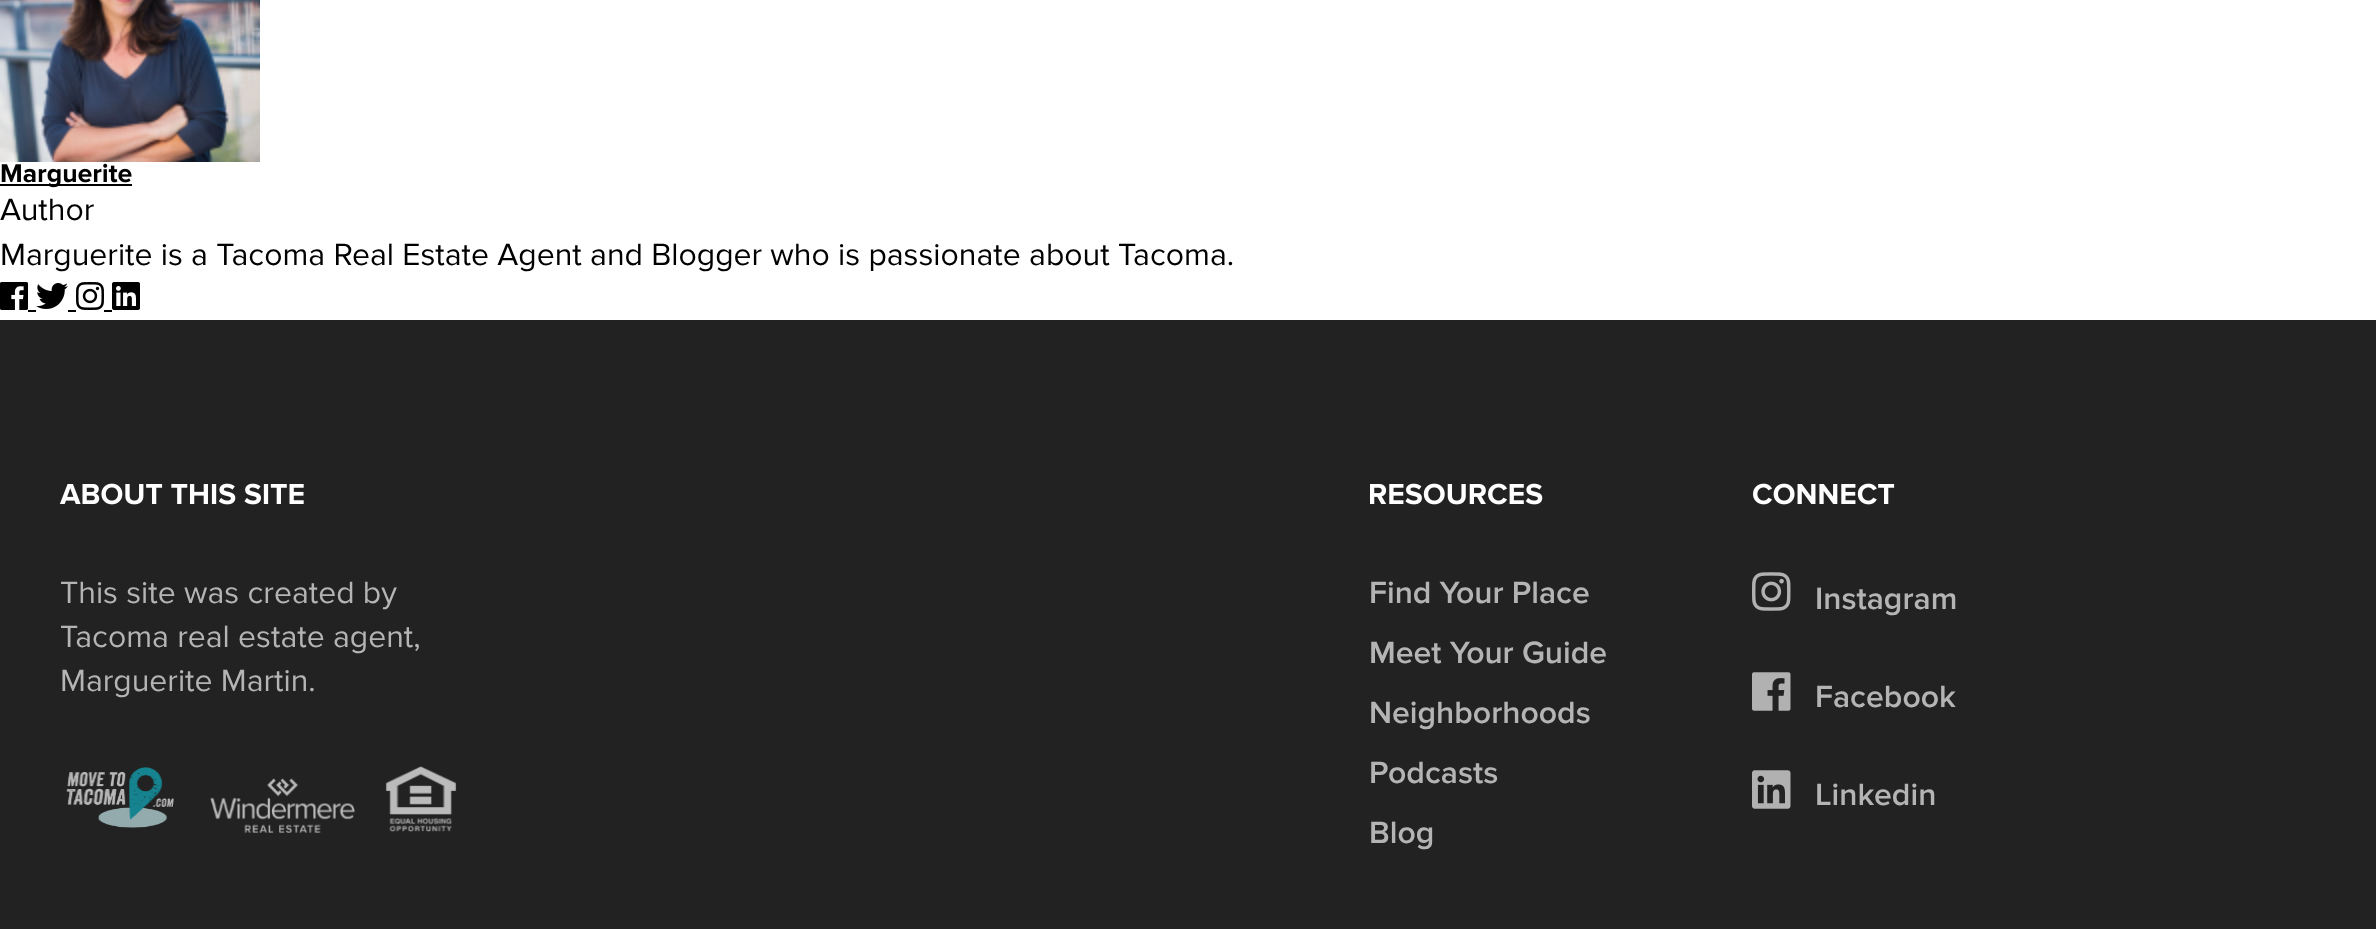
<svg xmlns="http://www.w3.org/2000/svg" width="2376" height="929">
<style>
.a{font:32px Proxima Nova;fill:#000}
.b{font:32px Proxima Nova;fill:#b4b4b4}
.c{font:600 32px Proxima Nova;fill:#b4b4b4}
</style>
<rect width="100%" height="100%" fill="#fff"/>
<image href="1.png" x="0" y="0" width="260" height="162"/>
<path fill="#000" d="M0 184h132v2H0z"/>
<image href="2.png" x="1" y="163" width="131" height="25"/>
<image href="3.png" x="0" y="282" width="28" height="28"/>
<path fill="#000" d="M28 310h8v2H28z"/>
<image href="4.png" x="36" y="283" width="32" height="26"/>
<path fill="#000" d="M68 310h8v2H68z"/>
<image href="5.png" x="76" y="282" width="28" height="28"/>
<path fill="#000" d="M104 310h8v2H104z"/>
<image href="6.png" x="112" y="282" width="28" height="28"/>
<path fill="#222" d="M0 320h2376v609H0z"/>
<image href="7.png" x="60" y="483" width="244" height="22"/>
<image href="8.png" x="66" y="767" width="108" height="61"/>
<image href="9.png" x="210" y="778" width="145" height="55"/>
<image href="10.png" x="385" y="766" width="72" height="66"/>
<image href="11.png" x="1370" y="483" width="173" height="22"/>
<image href="12.png" x="1753" y="483" width="142" height="22"/>
<image href="13.png" x="1752" y="572" width="39" height="39"/>
<image href="14.png" x="1752" y="672" width="39" height="39"/>
<image href="15.png" x="1752" y="770" width="39" height="39"/>
<text class="a" x="0" y="220">Author</text>
<text class="a" x="0" y="265">Marguerite is a Tacoma Real Estate Agent and Blogger who is passionate about Tacoma.</text>
<text class="b" x="60" y="603">This site was created by</text>
<text class="b" x="60" y="647">Tacoma real estate agent,</text>
<text class="b" x="60" y="691">Marguerite Martin.</text>
<text class="c" x="1369" y="603">Find Your Place</text>
<text class="c" x="1369" y="663">Meet Your Guide</text>
<text class="c" x="1369" y="723">Neighborhoods</text>
<text class="c" x="1369" y="783">Podcasts</text>
<text class="c" x="1369" y="843">Blog</text>
<text class="c" x="1815" y="609">Instagram</text>
<text class="c" x="1815" y="707">Facebook</text>
<text class="c" x="1815" y="805">Linkedin</text>
</svg>
